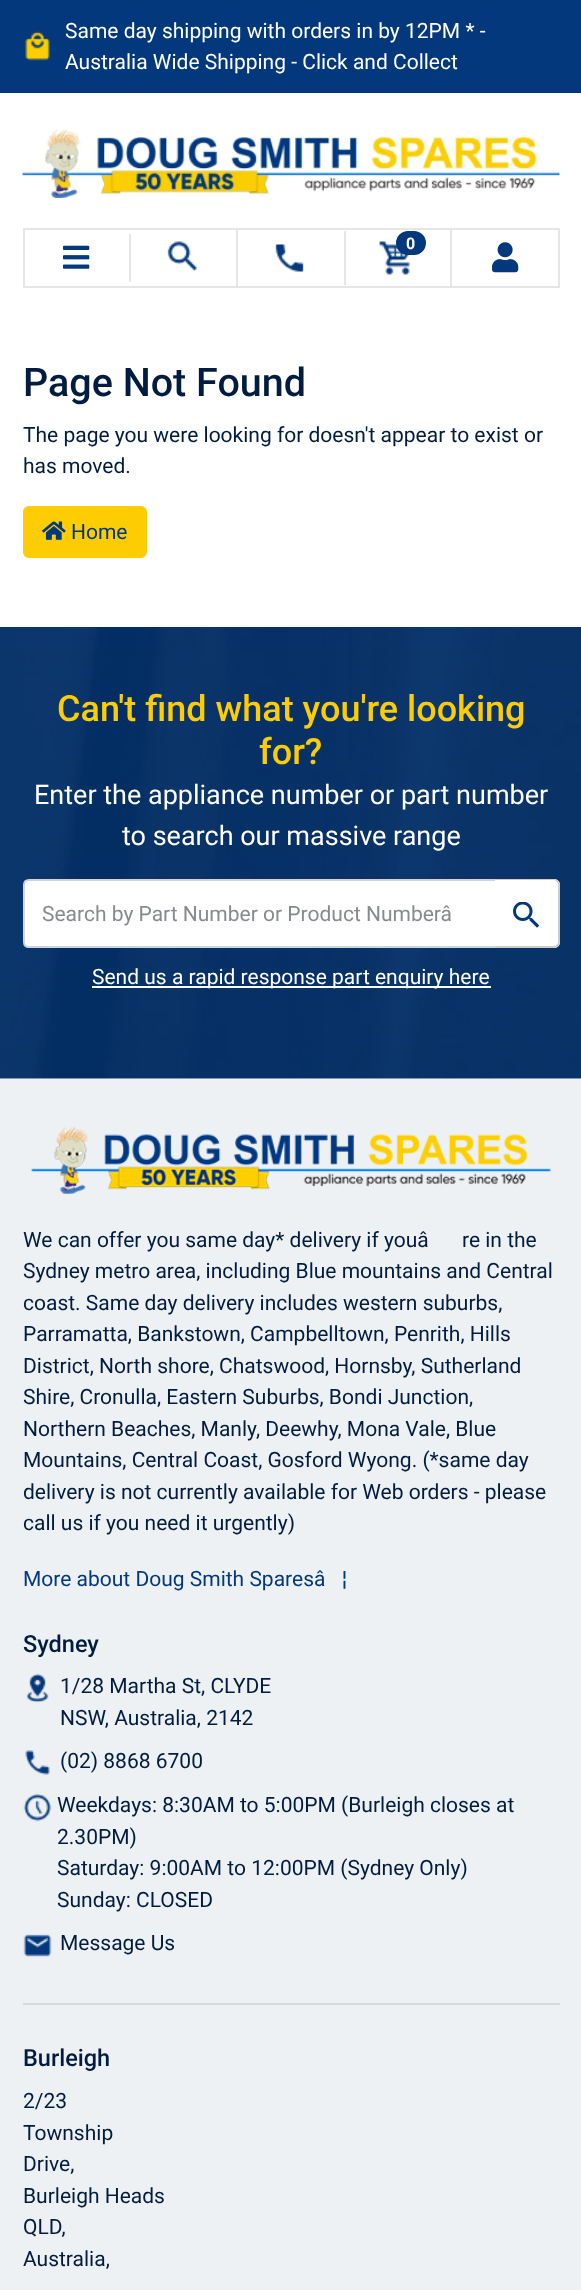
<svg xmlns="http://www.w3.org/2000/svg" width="581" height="2290">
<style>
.a{font:21px Roboto;fill:#fff}
.b{font:bold 16px Roboto;fill:#fff}
.c{font:500 39.5px Roboto;fill:#011c3f}
.d{font:21px Roboto;fill:#011c3f}
.e{font:21px Roboto;fill:#03397c}
.f{font:500 36px Roboto;fill:#fdcc03}
.g{font:27px Roboto;fill:#fff}
.h{font:21px Roboto;fill:#878a8e}
.i{font:500 23.5px Roboto;fill:#011c3f}
</style>
<rect width="100%" height="100%" fill="#fff"/>
<path fill="#03397c" d="M0 0h581v93H0z"/>
<image href="1.png" x="25" y="31" width="25" height="30"/>
<image href="2.png" x="22" y="129" width="538" height="69"/>
<path fill="none" stroke="#e6e6e6" stroke-width="2" d="M24 229h535v58H24z"/>
<path fill="#e6e6e6" d="M129 234h2v48H129z"/>
<image href="3.png" x="63" y="245" width="27" height="24"/>
<path fill="#e6e6e6" d="M236 230h2v57H236z"/>
<image href="4.png" x="167" y="241" width="30" height="31"/>
<path fill="#e6e6e6" d="M344 231h2v54H344z"/>
<image href="5.png" x="275" y="244" width="29" height="28"/>
<path fill="#e6e6e6" d="M450 230h2v57H450z"/>
<image href="6.png" x="379" y="241" width="31" height="34"/>
<rect fill="#03397c" x="396" y="231" width="30" height="24" rx="12"/>
<image href="7.png" x="492" y="242" width="27" height="31"/>
<rect fill="#fdcc03" stroke="#fdcc03" stroke-width="2" x="24" y="507" width="122" height="50" rx="5"/>
<image href="8.png" x="42" y="521" width="24" height="19"/>
<image href="9.png" x="0" y="627" width="581" height="452"/>
<path fill="#fff" stroke="#ced4da" stroke-width="2" d="M29 880h467v67h-467c-3 0-5-2-5-5v-57c0-3 2-5 5-5z"/>
<path fill="#fff" d="M495 879h59c3.5 0 6 2.5 6 6v57c0 3.5-2.5 6-6 6h-59z"/>
<path fill="#ccc" fill-rule="evenodd" d="M495 879h59c3 0 6 3 6 6v57c0 3-3 6-6 6h-59zm0 1h59c2 0 4 3 4 5v57c0 2-2 4-4 4h-59z"/>
<image href="10.png" x="513" y="902" width="27" height="26"/>
<path fill="#fff" d="M92 986h399v2H92z"/>
<path fill="#eef1f3" d="M0 1079h581v1211H0z"/>
<image href="11.png" x="31" y="1126" width="520" height="68"/>
<image href="12.png" x="26" y="1673" width="23" height="30"/>
<image href="13.png" x="25" y="1750" width="25" height="25"/>
<image href="14.png" x="23" y="1793" width="29" height="29"/>
<image href="15.png" x="23" y="1934" width="29" height="23"/>
<path fill="#d6d9db" d="M23 2003h537v2H23z"/>
<text class="a" x="65" y="38">Same day shipping with orders in by 12PM * -</text>
<text class="a" x="65" y="69">Australia Wide Shipping - Click and Collect</text>
<text class="b" x="406" y="249">0</text>
<text class="c" x="23" y="396">Page Not Found</text>
<text class="d" x="23" y="442">The page you were looking for doesn't appear to exist or</text>
<text class="d" x="23" y="473">has moved.</text>
<text class="e" x="71" y="539">Home</text>
<text class="f" x="57" y="721">Can't find what you're looking</text>
<text class="f" x="259" y="764">for?</text>
<text class="g" x="34" y="804">Enter the appliance number or part number</text>
<text class="g" x="122" y="845">to search our massive range</text>
<text class="h" x="42" y="921">Search by Part Number or Product Numberâ</text>
<text class="a" x="92" y="984">Send us a rapid response part enquiry here</text>
<text class="d" x="23" y="1247">We can offer you same day* delivery if youâ</text>
<text class="d" x="462" y="1247">re in the</text>
<text class="d" x="23" y="1278">Sydney metro area, including Blue mountains and Central</text>
<text class="d" x="23" y="1310">coast. Same day delivery includes western suburbs,</text>
<text class="d" x="23" y="1341">Parramatta, Bankstown, Campbelltown, Penrith, Hills</text>
<text class="d" x="23" y="1373">District, North shore, Chatswood, Hornsby, Sutherland</text>
<text class="d" x="23" y="1404">Shire, Cronulla, Eastern Suburbs, Bondi Junction,</text>
<text class="d" x="23" y="1436">Northern Beaches, Manly, Deewhy, Mona Vale, Blue</text>
<text class="d" x="23" y="1467">Mountains, Central Coast, Gosford Wyong. (*same day</text>
<text class="d" x="23" y="1499">delivery is not currently available for Web orders - please</text>
<text class="d" x="23" y="1530">call us if you need it urgently)</text>
<text class="e" x="23" y="1586">More about Doug Smith Sparesâ</text>
<text class="e" x="342" y="1586">¦</text>
<text class="i" x="23" y="1652">Sydney</text>
<text class="d" x="60" y="1693">1/28 Martha St, CLYDE</text>
<text class="d" x="60" y="1725">NSW, Australia, 2142</text>
<text class="d" x="60" y="1768">(02) 8868 6700</text>
<text class="d" x="57" y="1812">Weekdays: 8:30AM to 5:00PM (Burleigh closes at</text>
<text class="d" x="57" y="1844">2.30PM)</text>
<text class="d" x="57" y="1875">Saturday: 9:00AM to 12:00PM (Sydney Only)</text>
<text class="d" x="57" y="1907">Sunday: CLOSED</text>
<text class="d" x="60" y="1950">Message Us</text>
<text class="i" x="23" y="2066">Burleigh</text>
<text class="d" x="23" y="2108">2/23</text>
<text class="d" x="23" y="2140">Township</text>
<text class="d" x="23" y="2171">Drive,</text>
<text class="d" x="23" y="2203">Burleigh Heads</text>
<text class="d" x="23" y="2234">QLD,</text>
<text class="d" x="23" y="2266">Australia,</text>
</svg>
